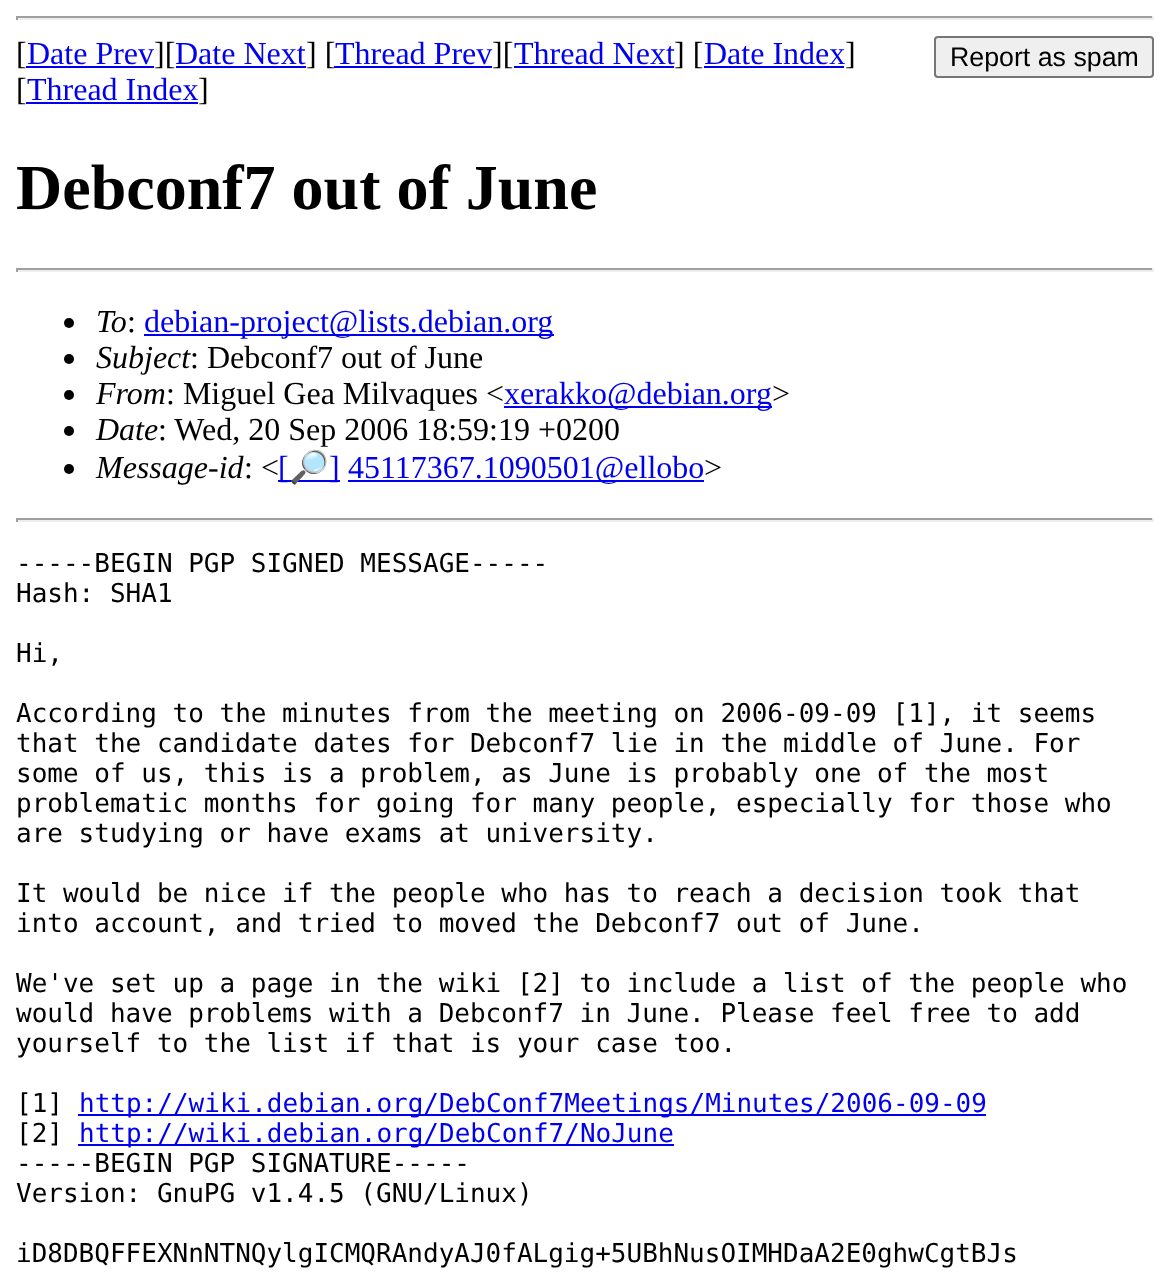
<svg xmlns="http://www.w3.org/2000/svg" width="1170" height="1276">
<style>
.a{font:32px Liberation Serif;fill:#000}
.b{font:32px Liberation Serif;fill:#00e}
.c{font:26.75px Liberation Sans;fill:#000}
.d{font:bold 64px Liberation Serif;fill:#000}
.e{font:italic 32px Liberation Serif;fill:#000}
.f{font:32px Noto Color Emoji;fill:#00e}
.g{font:26px DejaVu Sans Mono;fill:#000}
.h{font:26px DejaVu Sans Mono;fill:#00e}
</style>
<rect width="100%" height="100%" fill="#fff"/>
<path fill="#9f9f9f" d="M16 16h1138v2H16z"/>
<path fill="#eee" d="M1152 16h2v4H1152z"/>
<path fill="#eee" d="M16 18h1138v2H16z"/>
<path fill="#9f9f9f" d="M16 16h2v4H16z"/>
<path fill="#00e" d="M26 66h128v2H26z"/>
<path fill="#00e" d="M176 66h130v2H176z"/>
<path fill="#00e" d="M334 66h158v2H334z"/>
<path fill="#00e" d="M514 66h160v2H514z"/>
<path fill="#00e" d="M704 66h140v2H704z"/>
<rect fill="#efefef" stroke="#767676" stroke-width="2" x="935" y="37" width="218" height="40" rx="3"/>
<path fill="#00e" d="M26 102h172v2H26z"/>
<path fill="#9f9f9f" d="M16 268h1138v2H16z"/>
<path fill="#eee" d="M1152 268h2v4H1152z"/>
<path fill="#eee" d="M16 270h1138v2H16z"/>
<path fill="#9f9f9f" d="M16 268h2v4H16z"/>
<circle fill="#000" cx="69" cy="323" r="5"/>
<path fill="#00e" d="M144 334h410v2H144z"/>
<circle fill="#000" cx="69" cy="359" r="5"/>
<circle fill="#000" cx="69" cy="395" r="5"/>
<path fill="#00e" d="M504 406h268v2H504z"/>
<circle fill="#000" cx="69" cy="431" r="5"/>
<circle fill="#000" cx="69" cy="469" r="5"/>
<path fill="#00e" d="M278 480h62v2H278z"/>
<path fill="#00e" d="M348 480h356v2H348z"/>
<path fill="#9f9f9f" d="M16 518h1138v2H16z"/>
<path fill="#eee" d="M1152 518h2v4H1152z"/>
<path fill="#eee" d="M16 520h1138v2H16z"/>
<path fill="#9f9f9f" d="M16 518h2v4H16z"/>
<path fill="#00e" d="M78 1114h908v2H78z"/>
<path fill="#00e" d="M78 1144h596v2H78z"/>
<text class="a" x="16" y="64">[</text>
<text class="b" x="27" y="64">Date Prev</text>
<text class="a" x="154" y="64">][</text>
<text class="b" x="175" y="64">Date Next</text>
<text class="a" x="306" y="64">] [</text>
<text class="b" x="335" y="64">Thread Prev</text>
<text class="a" x="492" y="64">][</text>
<text class="b" x="514" y="64">Thread Next</text>
<text class="a" x="674" y="64">] [</text>
<text class="b" x="704" y="64">Date Index</text>
<text class="a" x="845" y="64">]</text>
<text class="c" x="950" y="66">Report as spam</text>
<text class="a" x="16" y="100">[</text>
<text class="b" x="27" y="100">Thread Index</text>
<text class="a" x="198" y="100">]</text>
<text class="d" x="16" y="209">Debconf7 out of June</text>
<text class="e" x="96" y="332">To</text>
<text class="a" x="127" y="332">:</text>
<text class="b" x="144" y="332">debian-project@lists.debian.org</text>
<text class="e" x="96" y="368">Subject</text>
<text class="a" x="190" y="368">: Debconf7 out of June</text>
<text class="e" x="96" y="404">From</text>
<text class="a" x="166" y="404">: Miguel Gea Milvaques &lt;</text>
<text class="b" x="504" y="404">xerakko@debian.org</text>
<text class="a" x="772" y="404">&gt;</text>
<text class="e" x="96" y="440">Date</text>
<text class="a" x="158" y="440">: Wed, 20 Sep 2006 18:59:19 +0200</text>
<text class="e" x="96" y="478">Message-id</text>
<text class="a" x="244" y="478">: &lt;</text>
<text class="b" x="278" y="478">[</text>
<text class="f" x="289" y="478">🔎</text>
<text class="b" x="329" y="478">]</text>
<text class="b" x="348" y="478">45117367.1090501@ellobo</text>
<text class="a" x="704" y="478">&gt;</text>
<text class="g" x="16" y="572">-----BEGIN PGP SIGNED MESSAGE-----</text>
<text class="g" x="16" y="602">Hash: SHA1</text>
<text class="g" x="16" y="662">Hi,</text>
<text class="g" x="16" y="722">According to the minutes from the meeting on 2006-09-09 [1], it seems</text>
<text class="g" x="16" y="752">that the candidate dates for Debconf7 lie in the middle of June. For</text>
<text class="g" x="16" y="782">some of us, this is a problem, as June is probably one of the most</text>
<text class="g" x="16" y="812">problematic months for going for many people, especially for those who</text>
<text class="g" x="16" y="842">are studying or have exams at university.</text>
<text class="g" x="16" y="902">It would be nice if the people who has to reach a decision took that</text>
<text class="g" x="16" y="932">into account, and tried to moved the Debconf7 out of June.</text>
<text class="g" x="16" y="992">We've set up a page in the wiki [2] to include a list of the people who</text>
<text class="g" x="16" y="1022">would have problems with a Debconf7 in June. Please feel free to add</text>
<text class="g" x="16" y="1052">yourself to the list if that is your case too.</text>
<text class="g" x="16" y="1112">[1]</text>
<text class="h" x="79" y="1112">http://wiki.debian.org/DebConf7Meetings/Minutes/2006-09-09</text>
<text class="g" x="16" y="1142">[2]</text>
<text class="h" x="79" y="1142">http://wiki.debian.org/DebConf7/NoJune</text>
<text class="g" x="16" y="1172">-----BEGIN PGP SIGNATURE-----</text>
<text class="g" x="16" y="1202">Version: GnuPG v1.4.5 (GNU/Linux)</text>
<text class="g" x="16" y="1262">iD8DBQFFEXNnNTNQylgICMQRAndyAJ0fALgig+5UBhNusOIMHDaA2E0ghwCgtBJs</text>
</svg>
